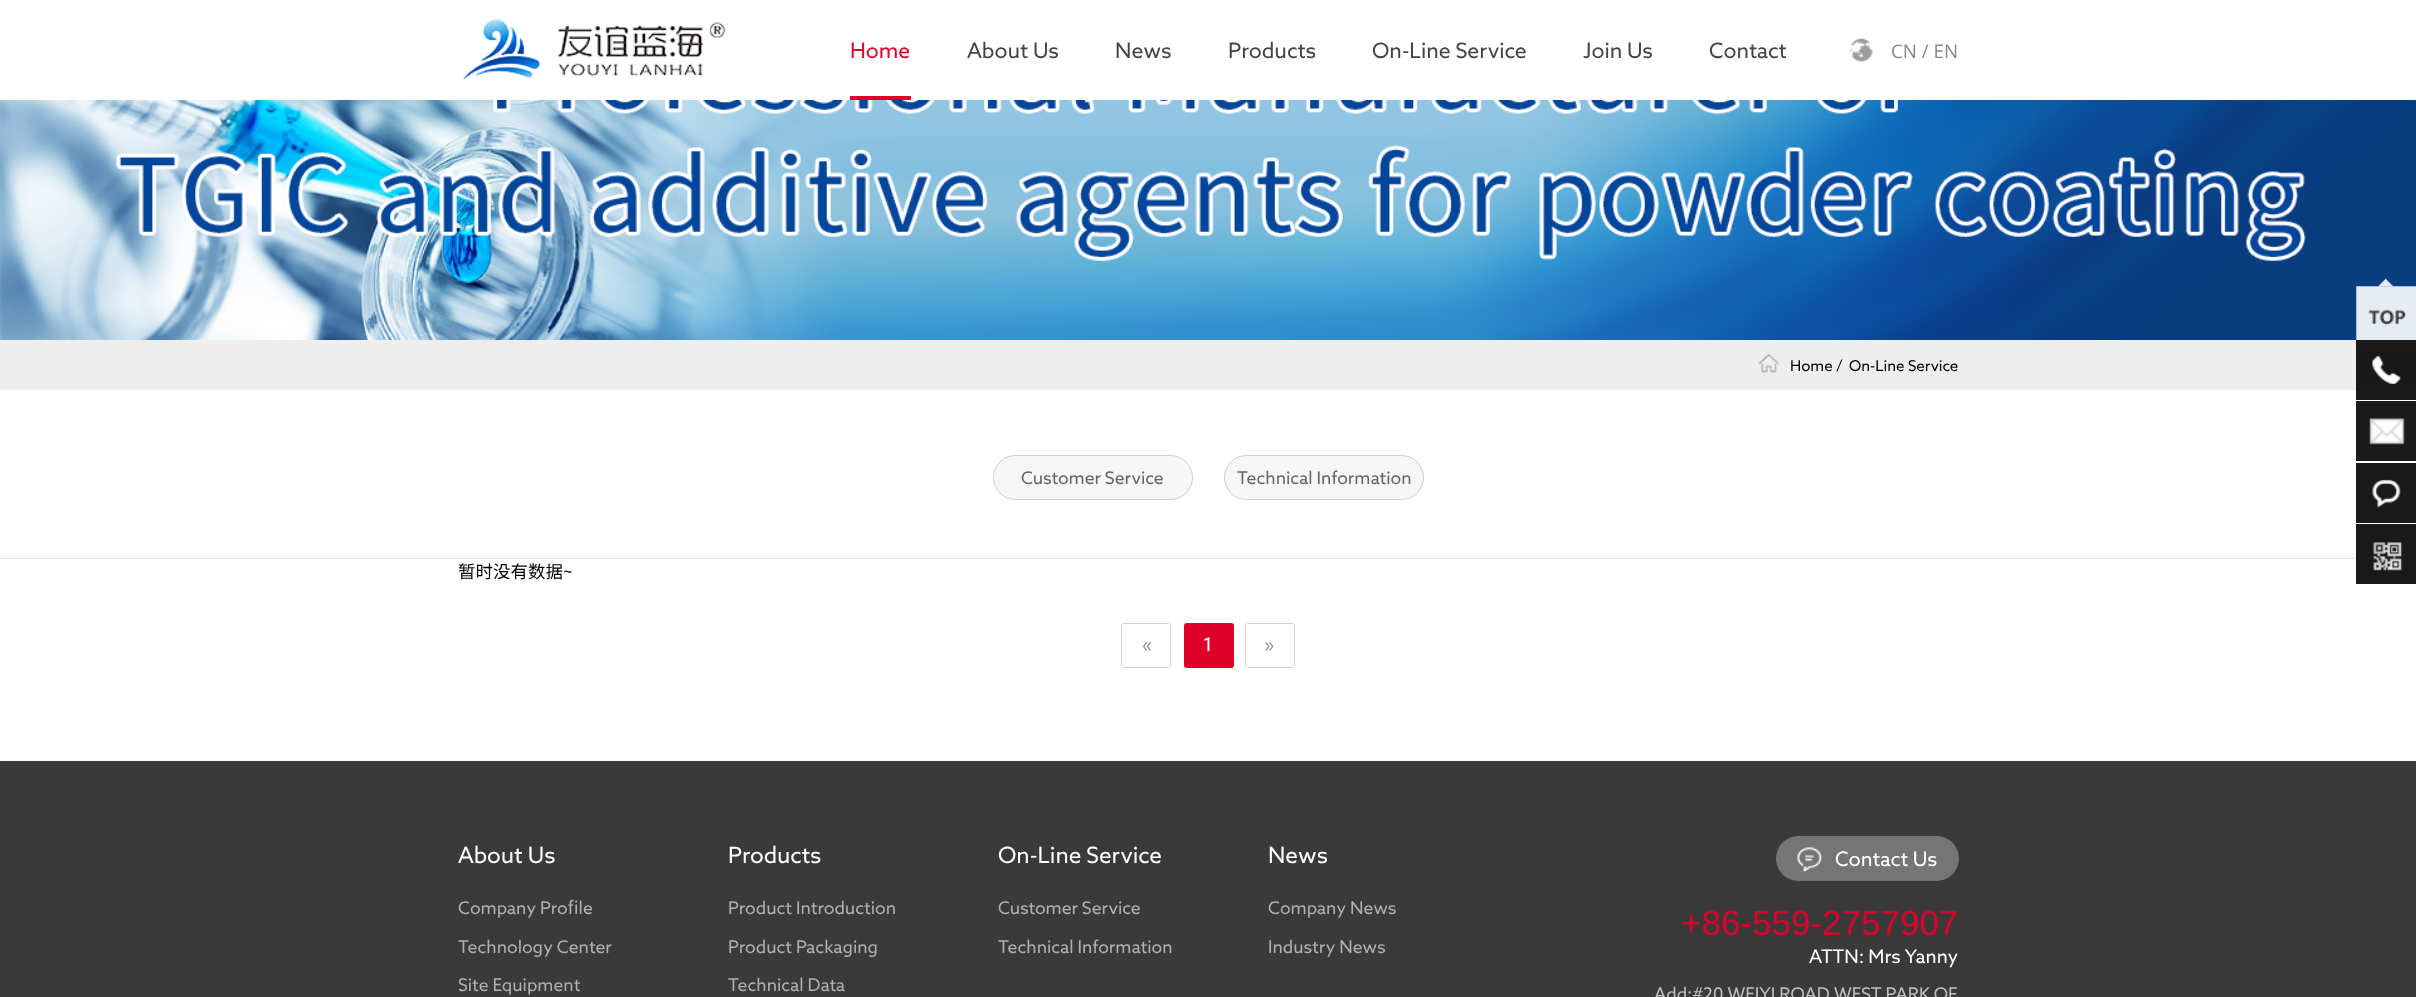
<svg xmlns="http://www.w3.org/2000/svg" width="2416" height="997">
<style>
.a{font:21.25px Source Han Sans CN;fill:#df002a}
.b{font:21.25px Source Han Sans CN;fill:#444}
.c{font:18.75px Open Sans;fill:#888}
.d{font:15px Source Han Sans CN;fill:#000}
.e{font:17.5px Source Han Sans CN;fill:#666}
.f{font:17.5px Source Han Sans CN;fill:#000}
.g{font:18.75px Source Han Sans CN;fill:#888}
.h{font:18.75px Source Han Sans CN;fill:#fff}
.i{font:22.5px Source Han Sans CN;fill:#fff}
.j{font:17.5px Source Han Sans CN;fill:#b0b0b0}
.k{font:20px Source Han Sans CN;fill:#fff}
.l{font:35px Liberation Sans;fill:#df002a}
.m{font:17.5px Source Han Sans CN;fill:#c0c0c0}
</style>
<rect width="100%" height="100%" fill="#fff"/>
<path fill="#191919" d="M2356 524h60v60H2356z"/>
<image href="1.png" x="462" y="18" width="264" height="62"/>
<path fill="#df002a" d="M850 96h61v4H850z"/>
<image href="2.png" x="1850" y="38" width="23" height="24"/>
<image href="3.png" x="0" y="100" width="2416" height="240"/>
<path fill="#eeeeef" d="M0 340h2416v50H0z"/>
<image href="4.png" x="1758" y="353" width="21" height="20"/>
<path fill="#e5e5e5" d="M0 558h2356v1H0z"/>
<rect fill="#f6f6f6" stroke="#cecece" x="993.5" y="455.5" width="199" height="44" rx="22"/>
<rect fill="#f6f6f6" stroke="#cecece" x="1224.5" y="455.5" width="199" height="44" rx="22"/>
<rect fill="none" stroke="#d2d2d2" x="1121.5" y="623.5" width="49" height="44" rx="2"/>
<rect fill="#df002a" stroke="#df002a" x="1184.5" y="623.5" width="49" height="44" rx="2"/>
<rect fill="none" stroke="#d2d2d2" x="1245.5" y="623.5" width="49" height="44" rx="2"/>
<image href="5.png" x="2378" y="278" width="15" height="9"/>
<image href="6.png" x="2356" y="286" width="60" height="60"/>
<path fill="#000000e6" d="M2356 340h60v60H2356z"/>
<image href="7.png" x="2372" y="356" width="29" height="28"/>
<path fill="#1a1a1a" d="M2356 401h60v60H2356z"/>
<image href="8.png" x="2369" y="418" width="36" height="27"/>
<path fill="#1a1a1a" d="M2356 463h60v60H2356z"/>
<image href="9.png" x="2372" y="479" width="29" height="29"/>
<image href="10.png" x="2373" y="542" width="30" height="29"/>
<path fill="#3a3a3a" d="M0 761h2416v236H0z"/>
<rect fill="#757575" x="1776" y="836" width="183" height="45" rx="22.5"/>
<image href="11.png" x="1797" y="847" width="25" height="25"/>
<text class="a" x="850" y="58">Home</text>
<text class="b" x="967" y="58">About Us</text>
<text class="b" x="1115" y="58">News</text>
<text class="b" x="1228" y="58">Products</text>
<text class="b" x="1372" y="58">On-Line Service</text>
<text class="b" x="1583" y="58">Join Us</text>
<text class="b" x="1709" y="58">Contact</text>
<text class="c" x="1891" y="58">CN / EN</text>
<text class="d" x="1790" y="371">Home /</text>
<text class="d" x="1849" y="371">On-Line Service</text>
<text class="e" x="1021" y="484">Customer Service</text>
<text class="e" x="1237" y="484">Technical Information</text>
<text class="f" x="458" y="578">暂时没有数据~</text>
<text class="g" x="1142" y="651">«</text>
<text class="h" x="1203" y="651">1</text>
<text class="g" x="1264" y="651">»</text>
<text class="i" x="458" y="863">About Us</text>
<text class="j" x="458" y="914">Company Profile</text>
<text class="j" x="458" y="953">Technology Center</text>
<text class="j" x="458" y="991">Site Equipment</text>
<text class="i" x="728" y="863">Products</text>
<text class="j" x="728" y="914">Product Introduction</text>
<text class="j" x="728" y="953">Product Packaging</text>
<text class="j" x="728" y="991">Technical Data</text>
<text class="i" x="998" y="863">On-Line Service</text>
<text class="j" x="998" y="914">Customer Service</text>
<text class="j" x="998" y="953">Technical Information</text>
<text class="i" x="1268" y="863">News</text>
<text class="j" x="1268" y="914">Company News</text>
<text class="j" x="1268" y="953">Industry News</text>
<text class="k" x="1835" y="866">Contact Us</text>
<text class="l" x="1681" y="935">+86-559-2757907</text>
<text class="h" x="1809" y="963">ATTN: Mrs Yanny</text>
<text class="m" x="1654" y="1000">Add:#20 WEIYI ROAD,WEST PARK OF</text>
</svg>
